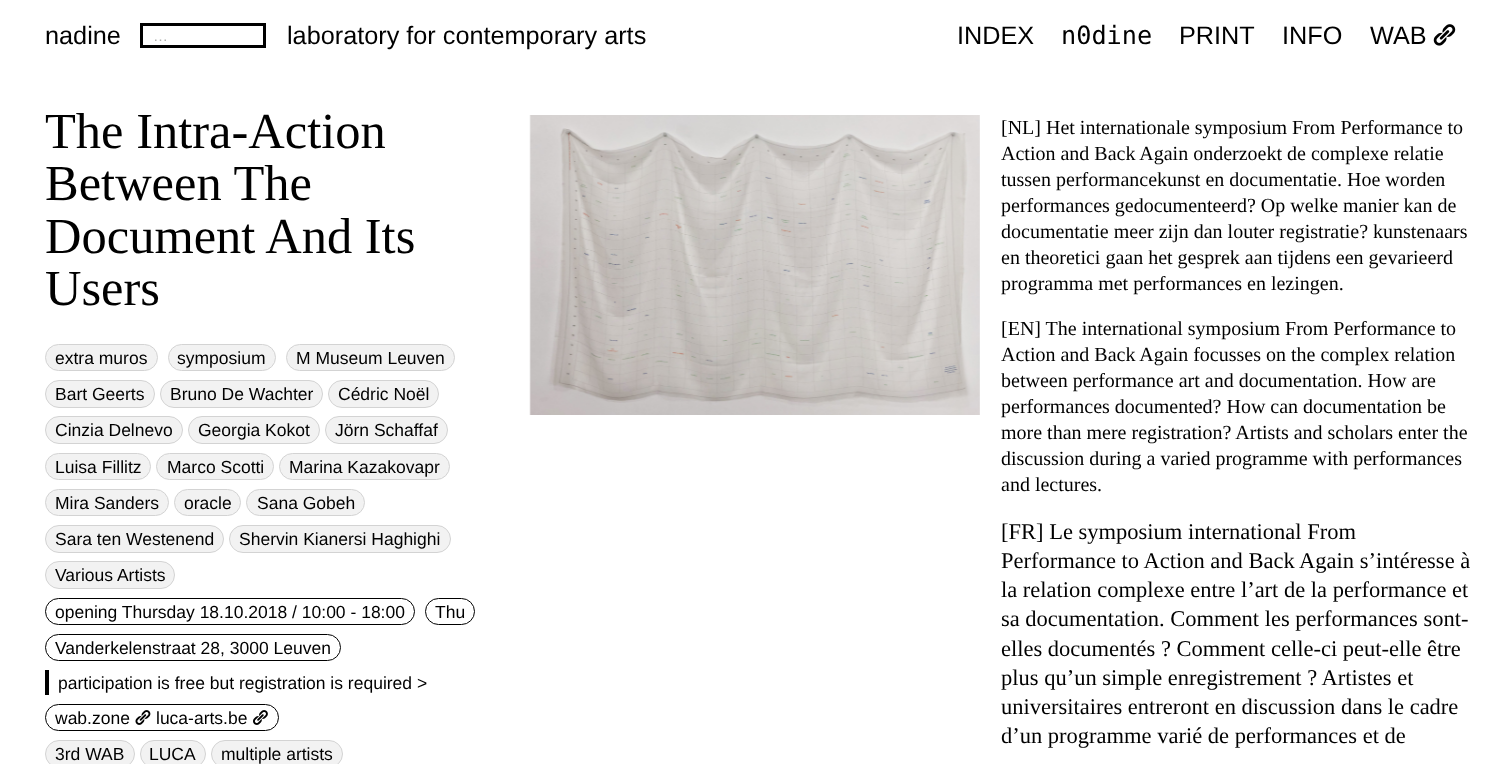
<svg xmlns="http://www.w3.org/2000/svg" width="1501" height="764">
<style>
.a{font:25.25px Liberation Sans;fill:#000}
.b{font:15px Liberation Sans;fill:#afb0ae}
.c{font:25.25px DejaVu Sans Mono;fill:#000}
.d{font:50.5px Liberation Serif;fill:#000}
.e{font:17.5px Liberation Sans;fill:#000}
.f{font:20px Liberation Serif;fill:#000}
.g{font:22.5px Liberation Serif;fill:#000}
</style>
<rect width="100%" height="100%" fill="#fff"/>
<path fill="none" stroke="#000" stroke-width="3" d="M141.5 24.5h123v22H141.5z"/>
<image href="1.png" x="1433" y="24" width="23" height="22"/>
<rect fill="#f2f2f2" stroke="#d3d3d3" x="45.5" y="344.5" width="112" height="26" rx="13"/>
<rect fill="#f2f2f2" stroke="#d3d3d3" x="168.5" y="344.5" width="107" height="26" rx="13"/>
<rect fill="#f2f2f2" stroke="#d3d3d3" x="286.5" y="344.5" width="168" height="26" rx="13"/>
<rect fill="#f2f2f2" stroke="#d3d3d3" x="45.5" y="380.5" width="109" height="27" rx="13.5"/>
<rect fill="#f2f2f2" stroke="#d3d3d3" x="160.5" y="380.5" width="162" height="27" rx="13.5"/>
<rect fill="#f2f2f2" stroke="#d3d3d3" x="328.5" y="380.5" width="110" height="27" rx="13.5"/>
<rect fill="#f2f2f2" stroke="#d3d3d3" x="45.5" y="416.5" width="137" height="27" rx="13.5"/>
<rect fill="#f2f2f2" stroke="#d3d3d3" x="188.5" y="416.5" width="131" height="27" rx="13.5"/>
<rect fill="#f2f2f2" stroke="#d3d3d3" x="325.5" y="416.5" width="122" height="27" rx="13.5"/>
<rect fill="#f2f2f2" stroke="#d3d3d3" x="45.5" y="453.5" width="105" height="26" rx="13"/>
<rect fill="#f2f2f2" stroke="#d3d3d3" x="156.5" y="453.5" width="117" height="26" rx="13"/>
<rect fill="#f2f2f2" stroke="#d3d3d3" x="279.5" y="453.5" width="170" height="26" rx="13"/>
<rect fill="#f2f2f2" stroke="#d3d3d3" x="45.5" y="489.5" width="123" height="26" rx="13"/>
<rect fill="#f2f2f2" stroke="#d3d3d3" x="174.5" y="489.5" width="66" height="26" rx="13"/>
<rect fill="#f2f2f2" stroke="#d3d3d3" x="246.5" y="489.5" width="118" height="26" rx="13"/>
<rect fill="#f2f2f2" stroke="#d3d3d3" x="45.5" y="525.5" width="178" height="27" rx="13.5"/>
<rect fill="#f2f2f2" stroke="#d3d3d3" x="229.5" y="525.5" width="221" height="27" rx="13.5"/>
<rect fill="#f2f2f2" stroke="#d3d3d3" x="45.5" y="561.5" width="129" height="27" rx="13.5"/>
<rect fill="none" stroke="#000" x="45.5" y="598.5" width="369" height="26" rx="13"/>
<rect fill="none" stroke="#000" x="425.5" y="598.5" width="49" height="26" rx="13"/>
<rect fill="none" stroke="#000" x="45.5" y="634.5" width="295" height="26" rx="13"/>
<path fill="#000" d="M45 670h4v25H45z"/>
<rect fill="none" stroke="#000" x="45.5" y="704.5" width="233" height="26" rx="13"/>
<image href="2.png" x="135" y="710" width="16" height="15"/>
<image href="3.png" x="253" y="710" width="15" height="15"/>
<rect fill="#f2f2f2" stroke="#d3d3d3" x="45.5" y="740.5" width="89" height="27" rx="13.5"/>
<rect fill="#f2f2f2" stroke="#d3d3d3" x="140.5" y="740.5" width="65" height="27" rx="13.5"/>
<rect fill="#f2f2f2" stroke="#d3d3d3" x="211.5" y="740.5" width="131" height="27" rx="13.5"/>
<image href="4.png" x="529" y="115" width="451" height="300"/>
<text class="a" x="45" y="44">nadine</text>
<text class="b" x="153" y="41">…</text>
<text class="a" x="287" y="44">laboratory for contemporary arts</text>
<text class="a" x="957" y="44">INDEX</text>
<text class="c" x="1061" y="44">n0dine</text>
<text class="a" x="1179" y="44">PRINT</text>
<text class="a" x="1282" y="44">INFO</text>
<text class="a" x="1370" y="44">WAB</text>
<text class="d" x="45" y="148">The Intra-Action</text>
<text class="d" x="45" y="200">Between The</text>
<text class="d" x="45" y="253">Document And Its</text>
<text class="d" x="45" y="305">Users</text>
<text class="e" x="55" y="364">extra muros</text>
<text class="e" x="177" y="364">symposium</text>
<text class="e" x="296" y="364">M Museum Leuven</text>
<text class="e" x="55" y="400">Bart Geerts</text>
<text class="e" x="170" y="400">Bruno De Wachter</text>
<text class="e" x="338" y="400">Cédric Noël</text>
<text class="e" x="55" y="436">Cinzia Delnevo</text>
<text class="e" x="198" y="436">Georgia Kokot</text>
<text class="e" x="335" y="436">Jörn Schaffaf</text>
<text class="e" x="55" y="473">Luisa Fillitz</text>
<text class="e" x="167" y="473">Marco Scotti</text>
<text class="e" x="289" y="473">Marina Kazakovapr</text>
<text class="e" x="55" y="509">Mira Sanders</text>
<text class="e" x="184" y="509">oracle</text>
<text class="e" x="257" y="509">Sana Gobeh</text>
<text class="e" x="55" y="545">Sara ten Westenend</text>
<text class="e" x="239" y="545">Shervin Kianersi Haghighi</text>
<text class="e" x="55" y="581">Various Artists</text>
<text class="e" x="55" y="618">opening Thursday 18.10.2018 / 10:00 - 18:00</text>
<text class="e" x="435" y="618">Thu</text>
<text class="e" x="55" y="654">Vanderkelenstraat 28, 3000 Leuven</text>
<text class="e" x="58" y="689">participation is free but registration is required &gt;</text>
<text class="e" x="55" y="724">wab.zone</text>
<text class="e" x="156" y="724">luca-arts.be</text>
<text class="e" x="55" y="760">3rd WAB</text>
<text class="e" x="149" y="760">LUCA</text>
<text class="e" x="221" y="760">multiple artists</text>
<text class="f" x="1001" y="134">[NL] Het internationale symposium From Performance to</text>
<text class="f" x="1001" y="160">Action and Back Again onderzoekt de complexe relatie</text>
<text class="f" x="1001" y="186">tussen performancekunst en documentatie. Hoe worden</text>
<text class="f" x="1001" y="212">performances gedocumenteerd? Op welke manier kan de</text>
<text class="f" x="1001" y="238">documentatie meer zijn dan louter registratie? kunstenaars</text>
<text class="f" x="1001" y="264">en theoretici gaan het gesprek aan tijdens een gevarieerd</text>
<text class="f" x="1001" y="290">programma met performances en lezingen.</text>
<text class="f" x="1001" y="335">[EN] The international symposium From Performance to</text>
<text class="f" x="1001" y="361">Action and Back Again focusses on the complex relation</text>
<text class="f" x="1001" y="387">between performance art and documentation. How are</text>
<text class="f" x="1001" y="413">performances documented? How can documentation be</text>
<text class="f" x="1001" y="439">more than mere registration? Artists and scholars enter the</text>
<text class="f" x="1001" y="465">discussion during a varied programme with performances</text>
<text class="f" x="1001" y="491">and lectures.</text>
<text class="g" x="1001" y="539">[FR] Le symposium international From</text>
<text class="g" x="1001" y="568">Performance to Action and Back Again s’intéresse à</text>
<text class="g" x="1001" y="597">la relation complexe entre l’art de la performance et</text>
<text class="g" x="1001" y="626">sa documentation. Comment les performances sont-</text>
<text class="g" x="1001" y="656">elles documentés ? Comment celle-ci peut-elle être</text>
<text class="g" x="1001" y="685">plus qu’un simple enregistrement ? Artistes et</text>
<text class="g" x="1001" y="714">universitaires entreront en discussion dans le cadre</text>
<text class="g" x="1001" y="743">d’un programme varié de performances et de</text>
</svg>
